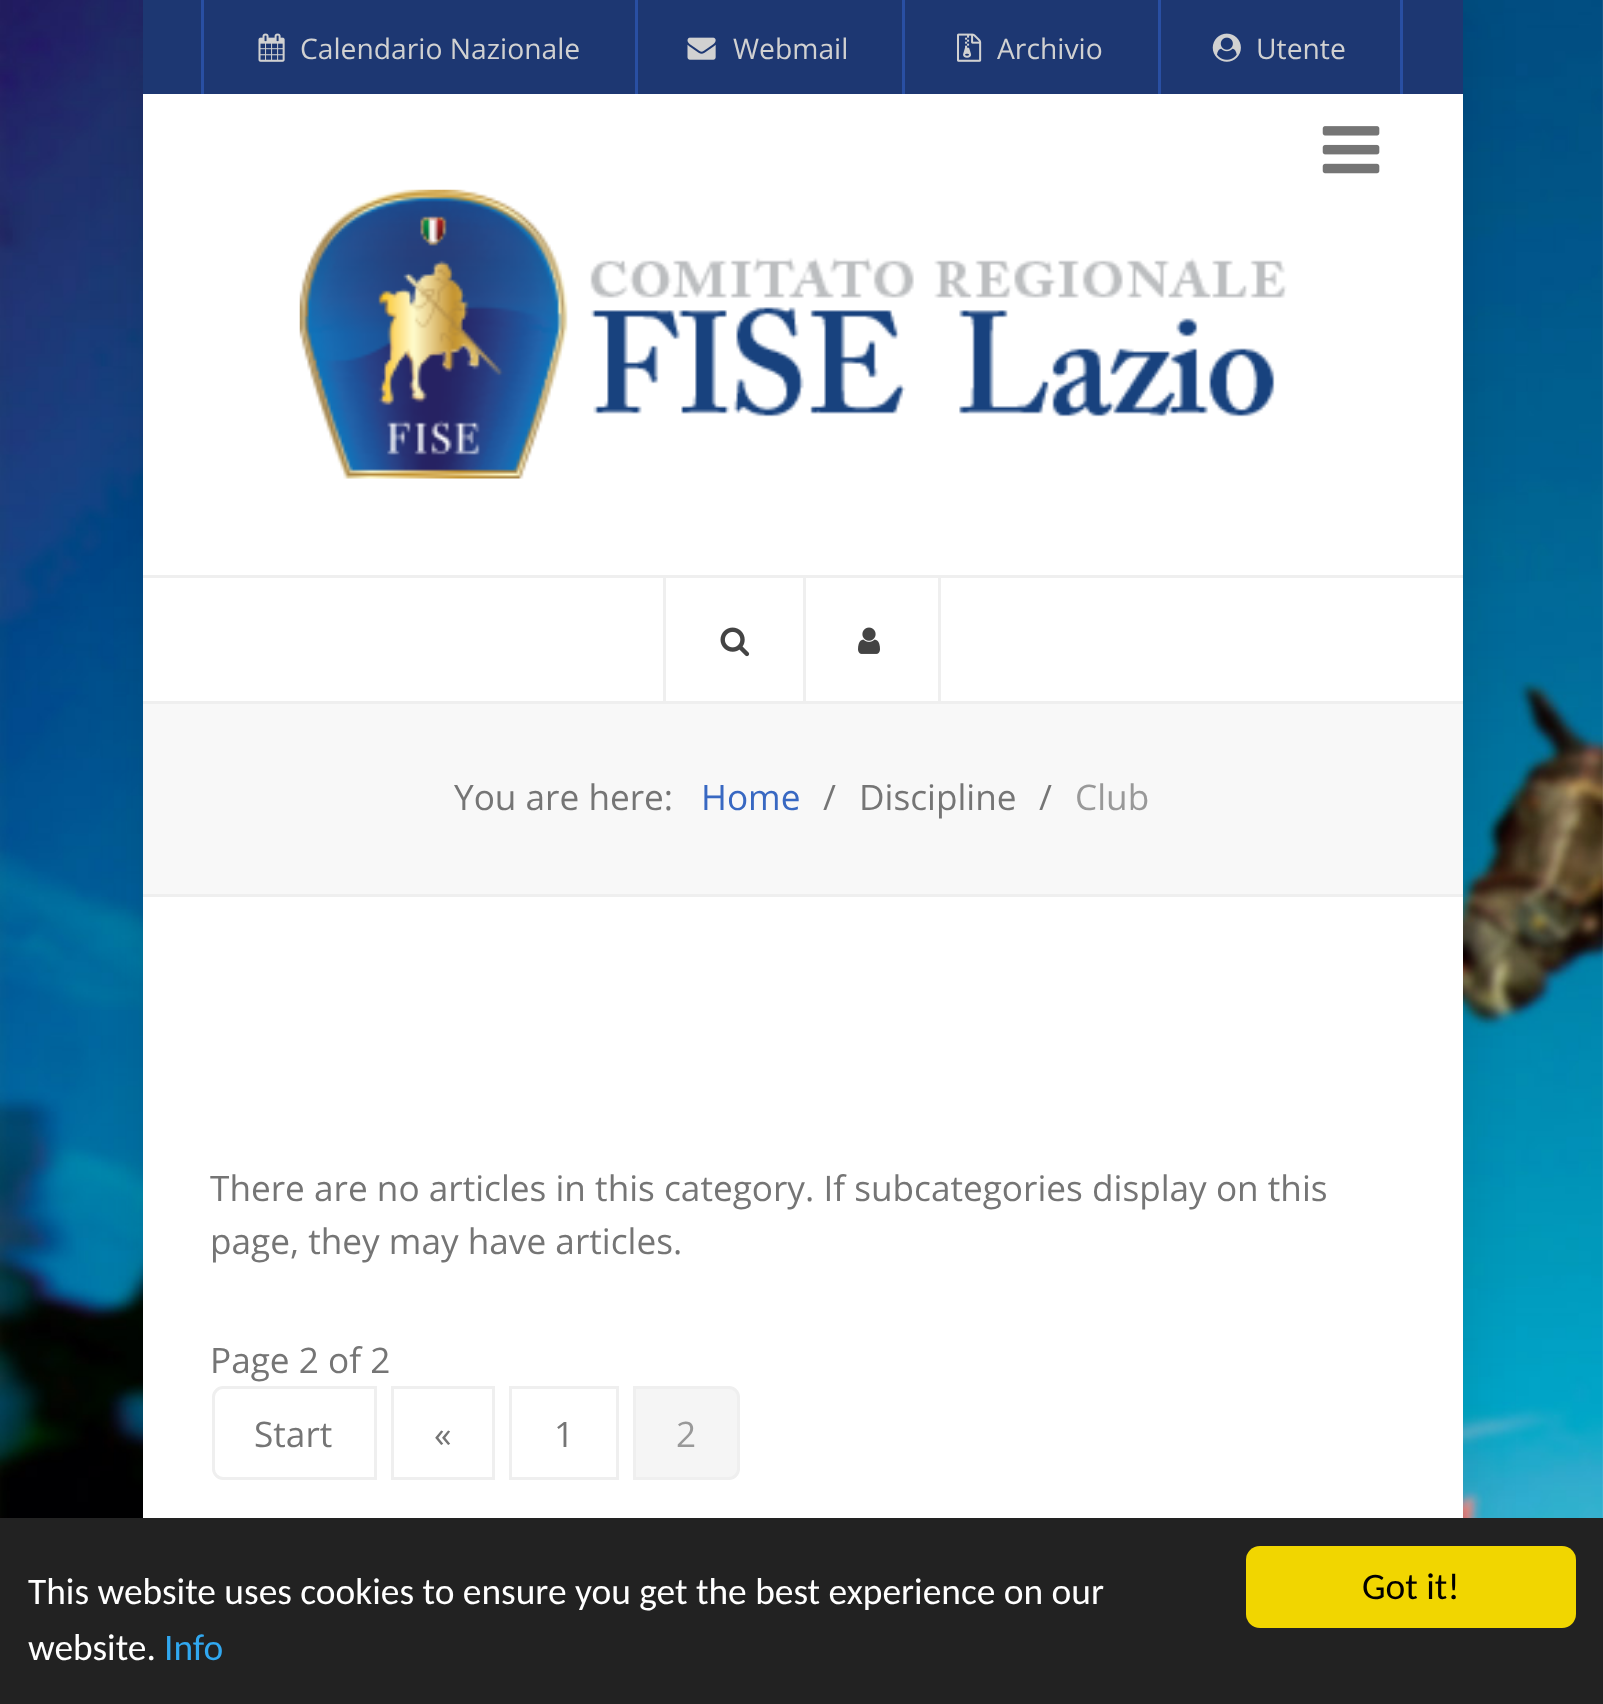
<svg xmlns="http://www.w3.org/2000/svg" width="1603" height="1704">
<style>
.a{font:28.25px Open Sans;fill:#d1d1d1}
.b{font:35.2px Open Sans;fill:#757575}
.c{font:35.2px Open Sans;fill:#3868c2}
.d{font:35.2px Open Sans;fill:#999}
.e{font:37.4px Carlito;fill:#fff}
.f{font:37.4px Carlito;fill:#31a8f0}
.g{font:37.4px Carlito;fill:#000}
</style>
<rect width="100%" height="100%" fill="#fff"/>
<image href="1.png" x="1602" y="0" width="1" height="1518"/>
<image href="2.png" x="0" y="0" width="1603" height="1518"/>
<path fill="#0000001a" filter="blur(27.5px)" d="M143 8h1320v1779H143z"/>
<path fill="#1d3772" d="M143 0h1320v94H143z"/>
<path fill="#294fa3" d="M635 0h3v94H635z"/>
<path fill="#294fa3" d="M201 0h3v94H201z"/>
<image href="3.png" x="258" y="33" width="27" height="29"/>
<path fill="#294fa3" d="M902 0h3v94H902z"/>
<image href="4.png" x="687" y="37" width="29" height="23"/>
<path fill="#294fa3" d="M1158 0h3v94H1158z"/>
<image href="5.png" x="957" y="33" width="25" height="29"/>
<path fill="#294fa3" d="M1400 0h3v94H1400z"/>
<image href="6.png" x="1212" y="33" width="29" height="29"/>
<path fill="#fff" d="M143 94h1320v481H143z"/>
<image href="7.png" x="1322" y="126" width="58" height="48"/>
<image href="8.png" x="299" y="189" width="988" height="290"/>
<path fill="#fff" d="M143 578h1320v123H143z"/>
<path fill="#efefef" d="M143 575h1320v3H143z"/>
<path fill="#efefef" d="M143 701h1320v3H143z"/>
<path fill="#efefef" d="M803 578h3v123H803z"/>
<path fill="#efefef" d="M663 578h3v123H663z"/>
<image href="9.png" x="720" y="627" width="30" height="30"/>
<path fill="#efefef" d="M938 578h3v123H938z"/>
<image href="10.png" x="858" y="627" width="22" height="27"/>
<path fill="#f8f8f8" d="M143 704h1320v190H143z"/>
<path fill="#efefef" d="M143 894h1320v3H143z"/>
<path fill="#fff" d="M143 897h1320v621H143z"/>
<path fill="none" stroke="#efefef" stroke-width="3" d="M223 1387.5h152.5v91h-152.5c-5 0-9.5-4.5-9.5-9.5v-72c0-5 4.5-9.5 9.5-9.5z"/>
<path fill="none" stroke="#efefef" stroke-width="3" d="M392.5 1387.5h101v91H392.5z"/>
<path fill="none" stroke="#efefef" stroke-width="3" d="M510.5 1387.5h107v91H510.5z"/>
<path fill="#f5f5f5" stroke="#efefef" stroke-width="3" d="M634.5 1387.5h94.5c5 0 9.5 4.5 9.5 9.5v72c0 5-4.5 9.5-9.5 9.5h-94.5z"/>
<path fill="#222" d="M0 1518h1603v186H0z"/>
<rect fill="#f1d600" x="1246" y="1546" width="330" height="82" rx="14"/>
<text class="a" x="300" y="59">Calendario Nazionale</text>
<text class="a" x="733" y="59">Webmail</text>
<text class="a" x="997" y="59">Archivio</text>
<text class="a" x="1256" y="59">Utente</text>
<text class="b" x="454" y="810">You are here:</text>
<text class="c" x="701" y="810">Home</text>
<text class="b" x="823" y="810">/</text>
<text class="b" x="859" y="810">Discipline</text>
<text class="b" x="1039" y="810">/</text>
<text class="d" x="1075" y="810">Club</text>
<text class="b" x="210" y="1201">There are no articles in this category. If subcategories display on this</text>
<text class="b" x="210" y="1254">page, they may have articles.</text>
<text class="b" x="210" y="1373">Page 2 of 2</text>
<text class="b" x="254" y="1447">Start</text>
<text class="b" x="434" y="1447">«</text>
<text class="b" x="554" y="1447">1</text>
<text class="d" x="676" y="1447">2</text>
<text class="e" x="28" y="1604">This website uses cookies to ensure you get the best experience on our</text>
<text class="e" x="28" y="1660">website.</text>
<text class="f" x="164" y="1660">Info</text>
<text class="g" x="1362" y="1599">Got it!</text>
</svg>
